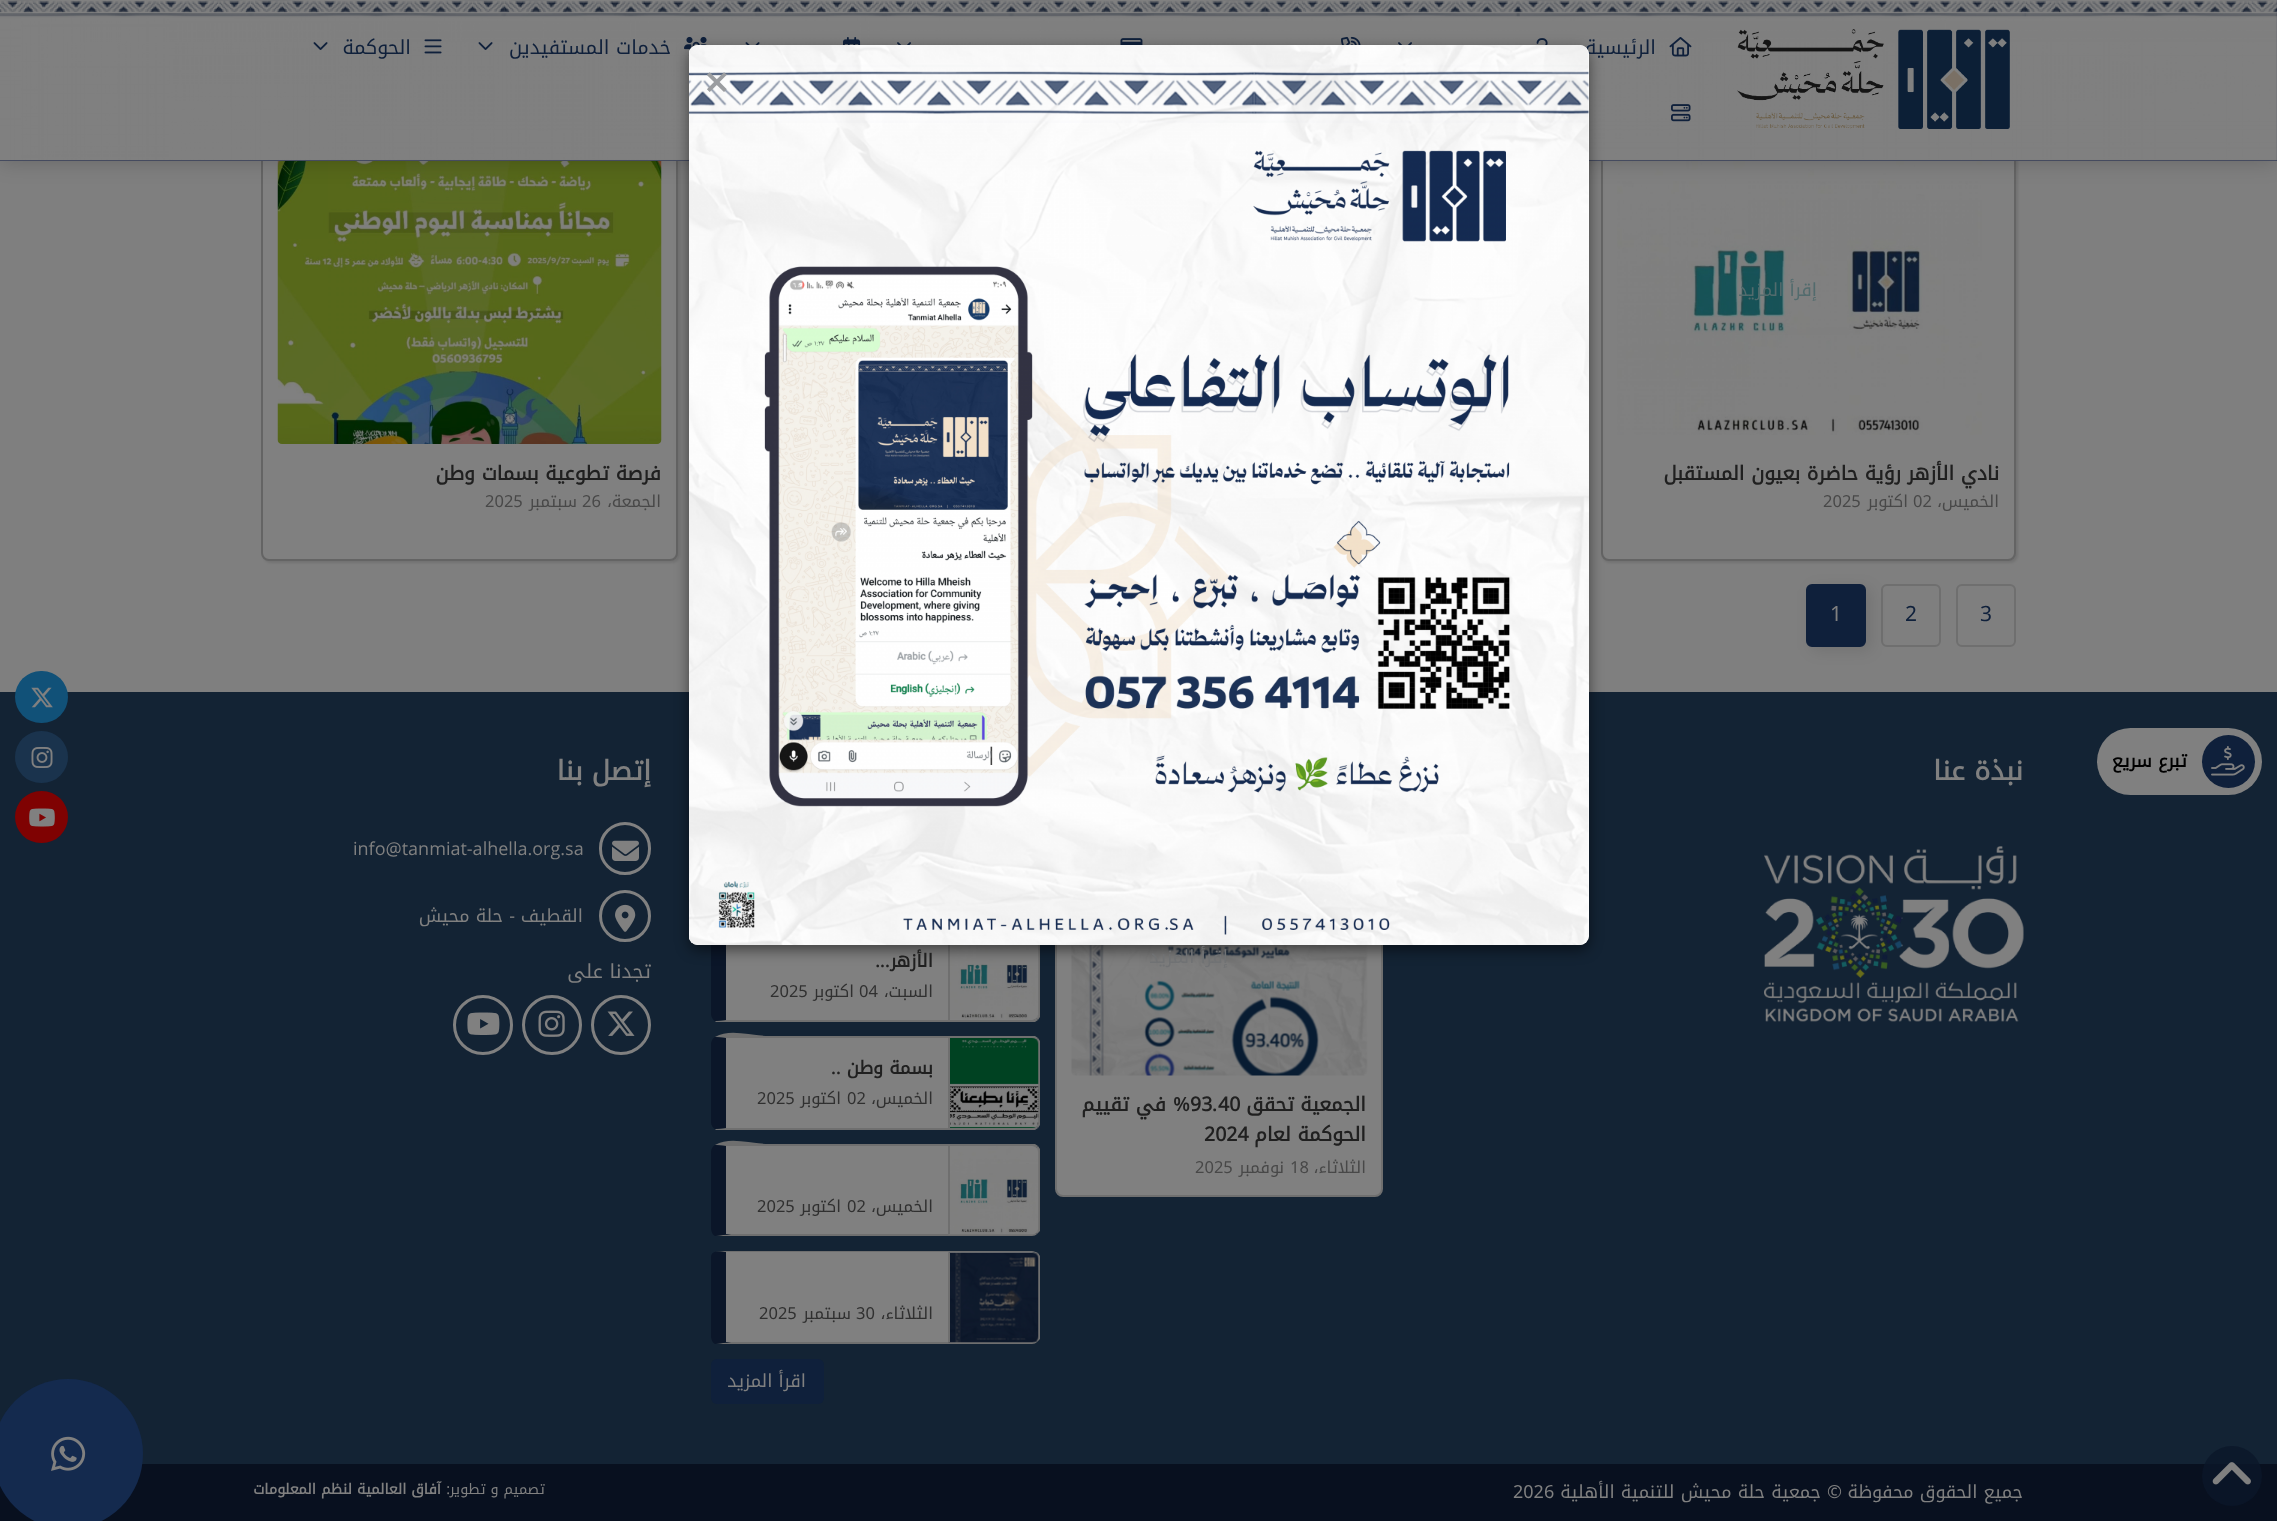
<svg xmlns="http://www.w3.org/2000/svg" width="2277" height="1521">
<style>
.a{font:19.5px Noto Kufi Arabic;direction:rtl;fill:#0f203b}
.b{font:600 45px Open Sans;fill:#9b9da0}
.c{font:18px Noto Kufi Arabic;direction:rtl;fill:#526b6d}
.d{font:bold 19.5px Noto Kufi Arabic;direction:rtl;fill:#202020}
.e{font:16.5px Noto Kufi Arabic;direction:rtl;fill:#484848}
.f{font:16.5px Noto Kufi Arabic;fill:#484848}
.g{font:21px Noto Kufi Arabic;fill:#0f203b}
.h{font:21px Noto Kufi Arabic;fill:#808080}
.i{font:bold 18px Noto Kufi Arabic;direction:rtl;fill:#000}
.j{font:bold 27px Noto Kufi Arabic;direction:rtl;fill:#808080}
.k{font:18px Open Sans;fill:#808080}
.l{font:18px Noto Kufi Arabic;direction:rtl;fill:#808080}
.m{font:18px Open Sans;direction:rtl;fill:#808080}
.n{font:19.5px Noto Kufi Arabic;direction:rtl;fill:#808080}
.o{font:18px Noto Kufi Arabic;direction:rtl;fill:#707274}
.p{font:bold 19.5px Noto Kufi Arabic;fill:#202020}
.q{font:600 19.5px Open Sans;fill:#202020}
.r{font:600 19.5px Open Sans;direction:rtl;fill:#202020}
.s{font:bold 18px Noto Kufi Arabic;direction:rtl;fill:#202020}
.t{font:600 18px Open Sans;direction:rtl;fill:#202020}
.u{font:16.5px Noto Kufi Arabic;direction:rtl;fill:#303030}
.v{font:16.5px Noto Kufi Arabic;fill:#303030}
.w{font:18px Noto Kufi Arabic;fill:#808080}
.x{font:14.4px Noto Kufi Arabic;direction:rtl;fill:#808080}
.y{font:14.4px Open Sans;direction:rtl;fill:#808080}
.z{font:bold 14.4px Noto Kufi Arabic;direction:rtl;fill:#808080}
</style>
<rect width="100%" height="100%" fill="#7f7f7f"/>
<rect fill="#0000001a" filter="blur(1px)" x="1602" y="122" width="416" height="441" rx="8"/>
<rect fill="#808080" stroke="#646464" stroke-width="2" x="1602" y="121" width="413" height="439" rx="7"/>
<image href="17.png" x="1617" y="161" width="365" height="274"/>
<rect fill="#0000001a" filter="blur(1px)" x="263" y="122" width="417" height="441" rx="8"/>
<rect fill="#808080" stroke="#646464" stroke-width="2" x="262" y="121" width="415" height="439" rx="7"/>
<image href="18.png" x="277" y="161" width="385" height="283"/>
<path fill="#00000033" filter="blur(11px)" d="M0 0h2277v161H0z"/>
<path fill="#0e1b41" d="M0 0h2277v161H0z"/>
<image href="1.png" x="0" y="0" width="2277" height="161"/>
<image href="2.png" x="1737" y="29" width="273" height="100"/>
<image href="3.png" x="1669" y="37" width="23" height="20"/>
<image href="4.png" x="1536" y="38" width="12" height="7"/>
<image href="5.png" x="1398" y="42" width="14" height="3"/>
<image href="6.png" x="1341" y="36" width="20" height="9"/>
<image href="7.png" x="1120" y="38" width="23" height="7"/>
<image href="8.png" x="897" y="42" width="14" height="3"/>
<image href="9.png" x="843" y="37" width="18" height="8"/>
<image href="10.png" x="745" y="42" width="15" height="3"/>
<image href="11.png" x="684" y="36" width="23" height="20"/>
<image href="12.png" x="478" y="42" width="15" height="8"/>
<image href="13.png" x="424" y="39" width="18" height="15"/>
<image href="14.png" x="313" y="42" width="15" height="8"/>
<image href="15.png" x="1671" y="104" width="20" height="18"/>
<path fill="#132334" d="M0 692h2277v772H0z"/>
<rect fill="#808080" stroke="#6f6f6f" stroke-width="2" x="1056" y="823" width="326" height="373" rx="7"/>
<image href="26.png" x="1071" y="945" width="297" height="131"/>
<path fill="#808080" d="M726 932h306c3 0 6 2 6 6v76c0 3-3 6-6 6h-306z"/>
<path fill="#6f6f6f" d="M1040 1017l-2 3l-2-2l2-3v-78l-2-4l1-1l3 3z"/>
<path fill="#6f6f6f" d="M716 1022l-1-1l11-1h306c2 0 3-1 4-2l2 2l-3 2z"/>
<path fill="#0b1629" d="M726 932h5l-16-2c-2 1-4 4-4 8v76c0 3 2 6 4 7l11-1z"/>
<image href="27.png" x="950" y="945" width="89" height="75"/>
<path fill="#6f6f6f" d="M948 945h2v75H948z"/>
<rect fill="#00000080" filter="blur(7px)" x="689" y="50" width="900" height="900" rx="9"/>
<rect fill="none" stroke="#6f6f6f" stroke-width="2" x="1957" y="585" width="58" height="61" rx="5"/>
<rect fill="none" stroke="#6f6f6f" stroke-width="2" x="1882" y="585" width="58" height="61" rx="5"/>
<rect fill="#0000001a" filter="blur(7.5px)" x="1811" y="588" width="60" height="63" rx="6"/>
<rect fill="#0f203b" stroke="#0f203b" stroke-width="2" x="1807" y="585" width="58" height="61" rx="5"/>
<rect fill="#808080" x="2097" y="728" width="165" height="67" rx="33.5"/>
<circle fill="#0f203b" cx="2228.5" cy="761.5" r="26.5"/>
<image href="19.png" x="2211" y="746" width="34" height="30"/>
<image href="20.png" x="1764" y="846" width="260" height="176"/>
<rect fill="none" stroke="#808080" stroke-width="3" x="600.5" y="823.5" width="49" height="50" rx="24.5"/>
<image href="21.png" x="612" y="840" width="27" height="21"/>
<circle fill="none" stroke="#808080" stroke-width="3" cx="625" cy="916" r="24.5"/>
<image href="22.png" x="615" y="904" width="21" height="28"/>
<circle fill="none" stroke="#808080" stroke-width="3" cx="621" cy="1025" r="28.5"/>
<image href="23.png" x="607" y="1011" width="28" height="25"/>
<circle fill="none" stroke="#808080" stroke-width="3" cx="552" cy="1025" r="28.5"/>
<image href="24.png" x="538" y="1010" width="27" height="27"/>
<circle fill="none" stroke="#808080" stroke-width="3" cx="483" cy="1025" r="28.5"/>
<image href="25.png" x="467" y="1012" width="33" height="23"/>
<path fill="#808080" d="M726 1038h306c3 0 6 3 6 6v78c0 3-3 6-6 6h-306z"/>
<path fill="#6f6f6f" d="M726 1038l-11-1c15-9 36-1 54-1h266l3 2l-2 2c-1-1-2-2-4-2z"/>
<path fill="#6f6f6f" d="M1040 1125l-2 3l-2-2l2-3v-80l-2-3l2-2l2 3z"/>
<path fill="#6f6f6f" d="M716 1130l-1-1l11-1h306c2 0 3-1 4-2l2 2l-3 2z"/>
<path fill="#0b1629" d="M726 1038l-11-1c-2 1-4 4-4 7v78c0 3 2 6 4 7l11-1z"/>
<image href="28.png" x="950" y="1038" width="89" height="90"/>
<path fill="#6f6f6f" d="M948 1038h2v90H948z"/>
<path fill="#808080" d="M726 1146h306c3 0 6 3 6 6v76c0 4-3 6-6 6h-306z"/>
<path fill="#6f6f6f" d="M726 1146l-11-1c15-9 36-1 54-1h266l3 2l-2 2c-1-1-2-2-4-2z"/>
<path fill="#6f6f6f" d="M1040 1231l-3 3l-1-1l2-4v-78l-2-3l2-2l2 3z"/>
<path fill="#6f6f6f" d="M718 1236h314c2 0 4-1 5-2l-1-1c-1 1-3 1-4 1h-301l-16 2z"/>
<path fill="#0b1629" d="M726 1146l-11-1c-2 1-4 4-4 7v76c0 4 2 7 4 8l16-2h-5z"/>
<image href="29.png" x="948" y="1146" width="91" height="89"/>
<path fill="#6f6f6f" d="M948 1146h2v88H948z"/>
<path fill="#808080" d="M726 1252h306c3 0 6 3 6 6v78c0 4-3 6-6 6h-306z"/>
<path fill="#6f6f6f" d="M718 1251h-3l11 1h306c2 0 3 1 4 2l2-1c-2-1-4-2-6-2z"/>
<path fill="#6f6f6f" d="M1040 1339l-3 3l-1-1l2-4v-80l-2-3l2-1l2 3z"/>
<path fill="#6f6f6f" d="M718 1344h314c2 0 4-1 5-2l-1-1c-1 1-3 1-4 1h-301l-16 2z"/>
<path fill="#0b1629" d="M711 1258v78c0 4 2 7 4 8l16-2h-5v-90c-6 0-15-3-15 6z"/>
<image href="30.png" x="948" y="1252" width="91" height="91"/>
<path fill="#6f6f6f" d="M948 1253h2v89H948z"/>
<rect fill="#0f203b" x="711" y="1359" width="113" height="45" rx="6"/>
<path fill="#08101f" d="M0 1464h2277v57H0z"/>
<rect fill="#115178" x="15" y="671" width="53" height="52" rx="26"/>
<image href="31.png" x="31" y="687" width="22" height="21"/>
<rect fill="#1a334d" x="15" y="731" width="53" height="52" rx="26"/>
<image href="32.png" x="31" y="747" width="22" height="21"/>
<rect fill="#7f0202" x="15" y="791" width="53" height="52" rx="26"/>
<image href="33.png" x="29" y="808" width="26" height="19"/>
<circle fill="#0b1629cc" cx="2232" cy="1476" r="30"/>
<image href="34.png" x="2212" y="1462" width="39" height="23"/>
<circle fill="#142a4e" cx="68" cy="1454" r="75"/>
<image href="35.png" x="51" y="1436" width="35" height="35"/>
<text class="a" x="1656" y="54">الرئيسية</text>
<text class="a" x="671" y="54">خدمات المستفيدين</text>
<text class="a" x="411" y="54">الحوكمة</text>
<rect fill="#fff" x="689" y="45" width="900" height="900" rx="9"/>
<image href="16.png" x="689" y="45" width="900" height="900"/>
<text class="b" x="704" y="98">×</text>
<text class="c" x="1817" y="296">إقرأ المزيد</text>
<text class="d" x="1999" y="480">نادي الأزهر رؤية حاضرة بعيون المستقبل</text>
<text class="e" x="1999" y="507">الخميس،</text>
<text class="f" x="1913" y="507">02</text>
<text class="e" x="1908" y="507">اكتوبر</text>
<text class="f" x="1823" y="507">2025</text>
<text class="d" x="661" y="480">فرصة تطوعية بسمات وطن</text>
<text class="e" x="661" y="507">الجمعة،</text>
<text class="f" x="582" y="507">26</text>
<text class="e" x="577" y="507">سبتمبر</text>
<text class="f" x="485" y="507">2025</text>
<text class="g" x="1980" y="621">3</text>
<text class="g" x="1905" y="621">2</text>
<text class="h" x="1830" y="621">1</text>
<text class="i" x="2187" y="767">تبرع سريع</text>
<text class="j" x="2023" y="780">نبذة عنا</text>
<text class="j" x="651" y="780">إتصل بنا</text>
<text class="k" x="353" y="855">info@tanmiat-alhella.org.sa</text>
<text class="l" x="583" y="922">القطيف</text>
<text class="m" x="515" y="922">-</text>
<text class="l" x="503" y="922">حلة محيش</text>
<text class="n" x="651" y="978">تجدنا على</text>
<text class="o" x="1228" y="963">إقرأ المزيد</text>
<text class="d" x="1366" y="1111">الجمعية</text>
<text class="d" x="1294" y="1111">تحقق</text>
<text class="p" x="1218" y="1111">40</text>
<text class="q" x="1212" y="1111">.</text>
<text class="p" x="1190" y="1111">93</text>
<text class="r" x="1190" y="1111">%</text>
<text class="d" x="1166" y="1111">في تقييم</text>
<text class="d" x="1366" y="1141">الحوكمة لعام</text>
<text class="p" x="1204" y="1141">2024</text>
<text class="e" x="1366" y="1173">الثلاثاء،</text>
<text class="f" x="1290" y="1173">18</text>
<text class="e" x="1284" y="1173">نوفمبر</text>
<text class="f" x="1195" y="1173">2025</text>
<text class="s" x="933" y="967">الأزهر</text>
<text class="t" x="890" y="967">...</text>
<text class="u" x="933" y="997">السبت،</text>
<text class="v" x="859" y="997">04</text>
<text class="u" x="854" y="997">اكتوبر</text>
<text class="v" x="770" y="997">2025</text>
<text class="s" x="933" y="1074">بسمة وطن</text>
<text class="t" x="841" y="1074">..</text>
<text class="u" x="933" y="1104">الخميس،</text>
<text class="v" x="847" y="1104">02</text>
<text class="u" x="841" y="1104">اكتوبر</text>
<text class="v" x="757" y="1104">2025</text>
<text class="u" x="933" y="1212">الخميس،</text>
<text class="v" x="847" y="1212">02</text>
<text class="u" x="841" y="1212">اكتوبر</text>
<text class="v" x="757" y="1212">2025</text>
<text class="u" x="933" y="1319">الثلاثاء،</text>
<text class="v" x="856" y="1319">30</text>
<text class="u" x="851" y="1319">سبتمبر</text>
<text class="v" x="759" y="1319">2025</text>
<text class="l" x="806" y="1387">اقرأ المزيد</text>
<text class="l" x="2023" y="1498">جميع الحقوق محفوظة</text>
<text class="m" x="1842" y="1498">©</text>
<text class="l" x="1821" y="1498">جمعية حلة محيش للتنمية الأهلية</text>
<text class="w" x="1513" y="1498">2026</text>
<text class="x" x="545" y="1494">تصميم و تطوير</text>
<text class="y" x="450" y="1494">:</text>
<text class="z" x="441" y="1494">آفاق العالمية لنظم المعلومات</text>
</svg>
